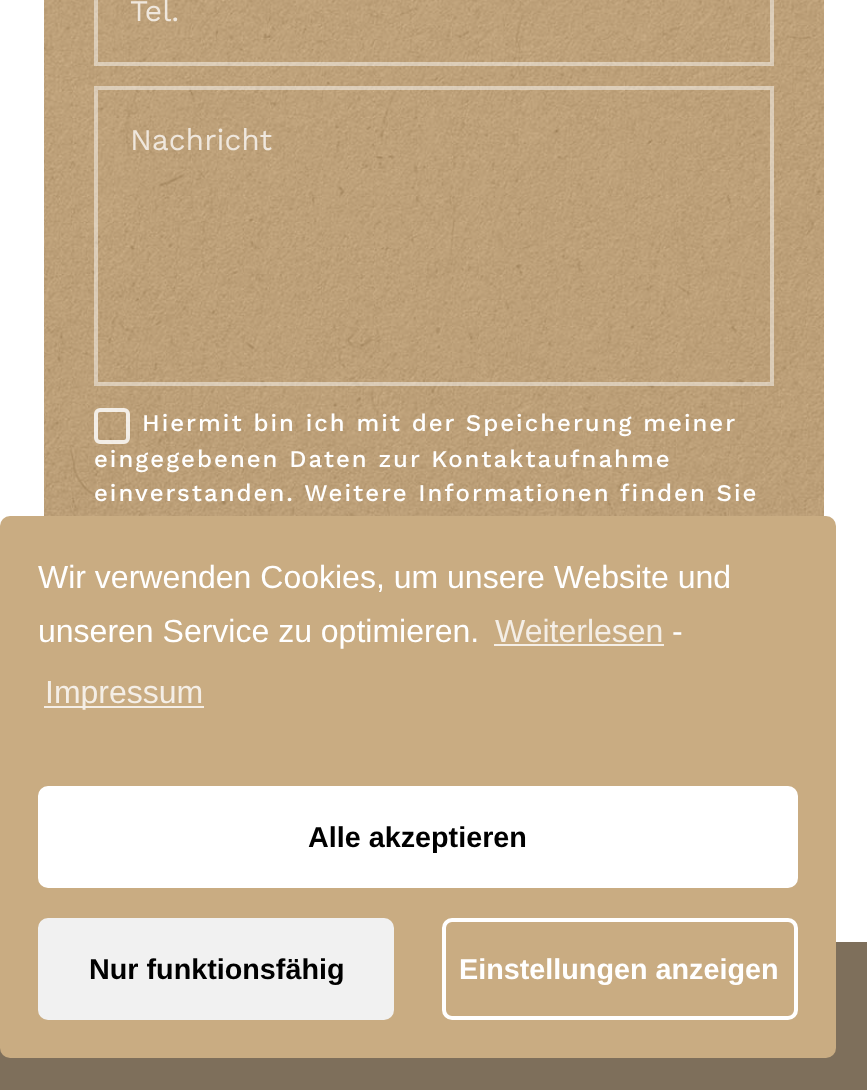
<svg xmlns="http://www.w3.org/2000/svg" width="867" height="1090">
<style>
.a{font:30px Work Sans;fill:#efe7dd}
.b{font:500 24px Work Sans;letter-spacing:2px;fill:#fff}
.c{font:32px Liberation Sans;fill:#fff}
.d{font:32px Liberation Sans;fill:#f4eee6}
.e{font:bold 28.75px Liberation Sans;fill:#000}
.f{font:bold 28.75px Liberation Sans;fill:#fff}
</style>
<rect width="100%" height="100%" fill="#fff"/>
<image href="1.png" x="44" y="0" width="780" height="516"/>
<path fill="none" stroke="#ffffff78" stroke-width="4" d="M96 -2h676v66H96z"/>
<path fill="none" stroke="#ffffff78" stroke-width="4" d="M96 88h676v296H96z"/>
<rect fill="none" stroke="#ffffffd1" stroke-width="4" x="96" y="410" width="32" height="32" rx="4"/>
<path fill="#7e6f5b" d="M0 942h867v148H0z"/>
<rect fill="#c9ac82" y="516" width="836" height="542" rx="10"/>
<path fill="#f4eee6" d="M494 644h170v2H494z"/>
<path fill="#f4eee6" d="M44 706h160v2H44z"/>
<rect fill="#fff" stroke="#fff" stroke-width="4" x="40" y="788" width="756" height="98" rx="8"/>
<rect fill="#f1f1f1" stroke="#f1f1f1" stroke-width="4" x="40" y="920" width="352" height="98" rx="8"/>
<rect fill="none" stroke="#fff" stroke-width="4" x="444" y="920" width="352" height="98" rx="8"/>
<text class="a" x="130" y="21">Tel.</text>
<text class="a" x="130" y="150">Nachricht</text>
<text class="b" x="142" y="431">Hiermit bin ich mit der Speicherung meiner</text>
<text class="b" x="94" y="467">eingegebenen Daten zur Kontaktaufnahme</text>
<text class="b" x="94" y="501">einverstanden. Weitere Informationen finden Sie</text>
<text class="c" x="38" y="588">Wir verwenden Cookies, um unsere Website und</text>
<text class="c" x="38" y="642">unseren Service zu optimieren.</text>
<text class="d" x="495" y="642">Weiterlesen</text>
<text class="c" x="672" y="642">-</text>
<text class="d" x="45" y="703">Impressum</text>
<text class="e" x="308" y="847">Alle akzeptieren</text>
<text class="e" x="89" y="979">Nur funktionsfähig</text>
<text class="f" x="459" y="979">Einstellungen anzeigen</text>
</svg>
